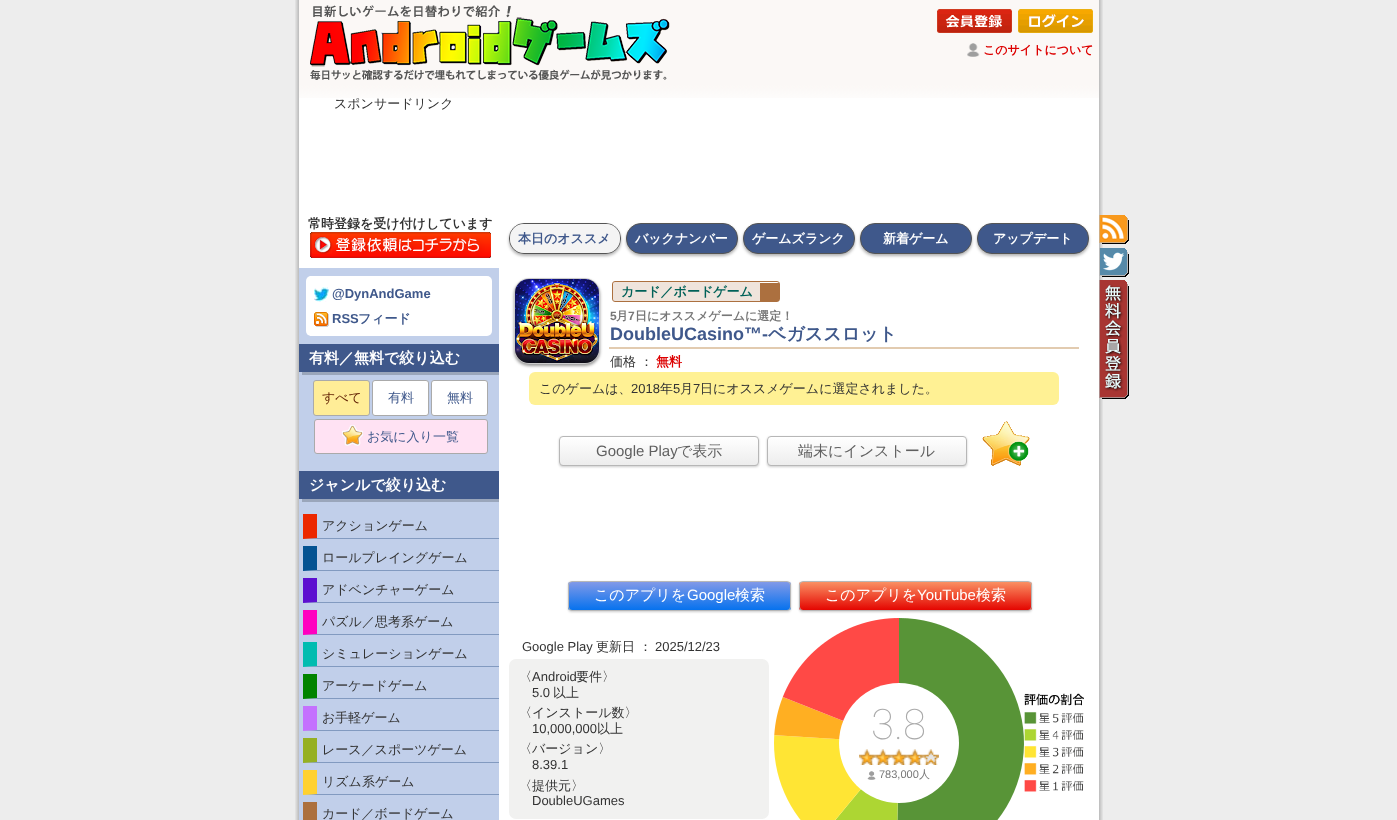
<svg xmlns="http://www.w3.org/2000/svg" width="1397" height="820">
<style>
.a{font:bold 12px WenQuanYi Zen Hei;fill:#d00}
.b{font:500 13px WenQuanYi Zen Hei;fill:#333}
.c{font:bold 13px WenQuanYi Zen Hei;fill:#333}
.d{font:bold 13px WenQuanYi Zen Hei;fill:#3f588b}
.e{font:bold 13px WenQuanYi Zen Hei;fill:#fff}
.f{font:bold 13px Liberation Sans;fill:#3f588b}
.g{font:bold 15px WenQuanYi Zen Hei;fill:#fff}
.h{font:500 13px WenQuanYi Zen Hei;fill:#5f1e01}
.i{font:500 13px WenQuanYi Zen Hei;fill:#3f588b}
.j{font:bold 13px WenQuanYi Zen Hei;fill:#006158}
.k{font:bold 12px Liberation Sans;fill:#777}
.l{font:bold 12px WenQuanYi Zen Hei;fill:#777}
.m{font:bold 18px Liberation Sans;fill:#3f588b}
.n{font:bold 18px WenQuanYi Zen Hei;fill:#3f588b}
.o{font:bold 13px WenQuanYi Zen Hei;fill:#d00}
.p{font:13px Liberation Sans;fill:#333}
.q{font:15px Liberation Sans;fill:#606060}
.r{font:500 15px WenQuanYi Zen Hei;fill:#606060}
.s{font:500 15px WenQuanYi Zen Hei;fill:#fff}
.t{font:15px Liberation Sans;fill:#fff}
.u{font:100 42px Heebo;fill:#aaa}
.v{font:11px Liberation Sans;fill:#777}
.w{font:500 11px WenQuanYi Zen Hei;fill:#777}
</style>
<defs>
<clipPath id="clip1"><rect x="559" y="436" width="200" height="30" rx="4"/></clipPath>
<linearGradient id="g1" gradientUnits="userSpaceOnUse" x1="560" y1="437" x2="560" y2="465"><stop offset="0" stop-color="#fff"/><stop offset="1" stop-color="#ededed"/></linearGradient>
<clipPath id="clip2"><rect x="767" y="436" width="200" height="30" rx="4"/></clipPath>
<linearGradient id="g2" gradientUnits="userSpaceOnUse" x1="768" y1="437" x2="768" y2="465"><stop offset="0" stop-color="#fff"/><stop offset="1" stop-color="#ededed"/></linearGradient>
<clipPath id="clip3"><rect x="568" y="581" width="223" height="30" rx="4"/></clipPath>
<linearGradient id="g3" gradientUnits="userSpaceOnUse" x1="680" y1="582" x2="680" y2="610"><stop offset="0" stop-color="#8199e8"/><stop offset="1" stop-color="#0672ee"/></linearGradient>
<clipPath id="clip4"><rect x="799" y="581" width="233" height="30" rx="4"/></clipPath>
<linearGradient id="g4" gradientUnits="userSpaceOnUse" x1="916" y1="582" x2="916" y2="610"><stop offset="0" stop-color="#fa9062"/><stop offset="1" stop-color="#e40500"/></linearGradient>
</defs>
<rect width="100%" height="100%" fill="#ededed"/>
<image href="1.png" x="295" y="0" width="808" height="820"/>
<path fill="#fbf8f6" d="M299 0h800v85H299z"/>
<image href="2.png" x="310" y="5" width="360" height="75"/>
<image href="3.png" x="937" y="9" width="75" height="24"/>
<image href="4.png" x="1018" y="9" width="75" height="24"/>
<image href="5.png" x="967" y="43" width="13" height="14"/>
<path fill="#fff" d="M1098 98h1v170H1098z"/>
<image href="6.png" x="299" y="85" width="800" height="13"/>
<image href="7.png" x="310" y="232" width="181" height="26"/>
<rect fill="#0000004d" filter="blur(1.5px)" x="509" y="225" width="112" height="31" rx="15"/>
<rect fill="none" stroke="#555" x="509.5" y="223.5" width="111" height="30" rx="14.5"/>
<rect fill="#f4f4f4" x="510" y="224" width="110" height="29" rx="14"/>
<rect fill="#0000004d" filter="blur(1.5px)" x="626" y="225" width="112" height="31" rx="15"/>
<rect fill="#3f588b" stroke="#555" x="626.5" y="223.5" width="111" height="30" rx="14.5"/>
<rect fill="#0000004d" filter="blur(1.5px)" x="743" y="225" width="112" height="31" rx="15"/>
<rect fill="#3f588b" stroke="#555" x="743.5" y="223.5" width="111" height="30" rx="14.5"/>
<rect fill="#0000004d" filter="blur(1.5px)" x="860" y="225" width="112" height="31" rx="15"/>
<rect fill="#3f588b" stroke="#555" x="860.5" y="223.5" width="111" height="30" rx="14.5"/>
<rect fill="#0000004d" filter="blur(1.5px)" x="977" y="225" width="112" height="31" rx="15"/>
<rect fill="#3f588b" stroke="#555" x="977.5" y="223.5" width="111" height="30" rx="14.5"/>
<path fill="#c1cfea" d="M299 268h200v552H299z"/>
<rect fill="#fff" x="306" y="276" width="186" height="60" rx="5"/>
<image href="8.png" x="314" y="287" width="15" height="15"/>
<image href="9.png" x="314" y="312" width="15" height="15"/>
<path fill="#9aa6bb" d="M302 372v3h200v-28h-3v25z"/>
<path fill="#3f588b" d="M299 344h200v28H299z"/>
<rect fill="#ffed97" stroke="#aaa" x="313.5" y="380.5" width="56" height="35" rx="2.5"/>
<rect fill="#fff" stroke="#aaa" x="372.5" y="380.5" width="56" height="35" rx="2.5"/>
<rect fill="#fff" stroke="#aaa" x="431.5" y="380.5" width="56" height="35" rx="2.5"/>
<rect fill="#ffe2f3" stroke="#aaa" x="314.5" y="419.5" width="173" height="34" rx="2.5"/>
<image href="10.png" x="342" y="425" width="21" height="21"/>
<path fill="#9aa6bb" d="M302 499v3h200v-28h-3v25z"/>
<path fill="#3f588b" d="M299 471h200v28H299z"/>
<path fill="#829ac0" d="M499 539h-196l14-1h182z"/>
<path fill="#ec2700" d="M303 539v-25h14v24z"/>
<path fill="#829ac0" d="M499 571h-196l14-1h182z"/>
<path fill="#035292" d="M303 571v-25h14v24z"/>
<path fill="#829ac0" d="M499 603h-196l14-1h182z"/>
<path fill="#5c0fd0" d="M303 603v-25h14v24z"/>
<path fill="#829ac0" d="M499 635h-196l14-1h182z"/>
<path fill="#ff00c0" d="M303 635v-25h14v24z"/>
<path fill="#829ac0" d="M499 667h-196l14-1h182z"/>
<path fill="#00bcb0" d="M303 667v-25h14v24z"/>
<path fill="#829ac0" d="M499 699h-196l14-1h182z"/>
<path fill="#008300" d="M303 699v-25h14v24z"/>
<path fill="#829ac0" d="M499 731h-196l14-1h182z"/>
<path fill="#c471fe" d="M303 731v-25h14v24z"/>
<path fill="#829ac0" d="M499 763h-196l14-1h182z"/>
<path fill="#95b023" d="M303 763v-25h14v24z"/>
<path fill="#829ac0" d="M499 795h-196l14-1h182z"/>
<path fill="#ffd131" d="M303 795v-25h14v24z"/>
<path fill="#ac703f" d="M303 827v-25h14v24z"/>
<path fill="#fff" d="M499 268h600v552H499z"/>
<rect fill="#00000066" filter="blur(1.5px)" x="514" y="280" width="86" height="86" rx="15"/>
<rect fill="none" stroke="#ccc" x="514.5" y="278.5" width="85" height="85" rx="14.5"/>
<image href="11.png" x="515" y="279" width="84" height="84"/>
<path fill="#efe4dc" d="M615 282h145v19h-145c-3 0-2-8-2-9c0-2-1-10 2-10z"/>
<rect fill="none" stroke="#ac703f" x="612.5" y="281.5" width="167" height="20" rx="2.5"/>
<path fill="#ac703f" d="M760 283h19v18H760z"/>
<path fill="#e2cbb0" d="M609 347h470v2H609z"/>
<rect fill="#fff194" x="529" y="372" width="530" height="33" rx="6"/>
<rect fill="#00000033" filter="blur(1px)" x="559" y="437" width="200" height="30" rx="4"/>
<g clip-path="url(#clip1)">
<path fill="url(#g1)" d="M559 437h200v28H559z"/>
</g>
<rect fill="none" stroke="#b7b7b7" x="559.5" y="436.5" width="199" height="29" rx="3.5"/>
<rect fill="#00000033" filter="blur(1px)" x="767" y="437" width="200" height="30" rx="4"/>
<g clip-path="url(#clip2)">
<path fill="url(#g2)" d="M767 437h200v28H767z"/>
</g>
<rect fill="none" stroke="#b7b7b7" x="767.5" y="436.5" width="199" height="29" rx="3.5"/>
<image href="12.png" x="982" y="421" width="48" height="45"/>
<rect fill="#00000033" filter="blur(1px)" x="568" y="582" width="223" height="30" rx="4"/>
<g clip-path="url(#clip3)">
<path fill="url(#g3)" d="M568 582h223v28H568z"/>
</g>
<rect fill="none" stroke="#b7b7b7" x="568.5" y="581.5" width="222" height="29" rx="3.5"/>
<rect fill="#00000033" filter="blur(1px)" x="799" y="582" width="233" height="30" rx="4"/>
<g clip-path="url(#clip4)">
<path fill="url(#g4)" d="M799 582h233v28H799z"/>
</g>
<rect fill="none" stroke="#b7b7b7" x="799.5" y="581.5" width="232" height="29" rx="3.5"/>
<rect fill="#f1f1f0" x="509" y="659" width="260" height="160" rx="7"/>
<image href="13.png" x="774" y="618" width="250" height="202"/>
<circle fill="#fff" cx="899" cy="743" r="60"/>
<image href="14.png" x="859" y="749" width="80" height="16"/>
<image href="15.png" x="867" y="771" width="9" height="9"/>
<image href="16.png" x="1024" y="693" width="60" height="99"/>
<image href="17.png" x="1099" y="215" width="30" height="29"/>
<image href="18.png" x="1099" y="248" width="30" height="29"/>
<image href="19.png" x="1099" y="280" width="30" height="119"/>
<text class="a" x="983" y="54">このサイトについて</text>
<text class="b" x="334" y="108">スポンサードリンク</text>
<text class="c" x="308" y="228">常時登録を受け付けしています</text>
<text class="d" x="518" y="243">本日のオススメ</text>
<text class="e" x="635" y="243">バックナンバー</text>
<text class="e" x="752" y="243">ゲームズランク</text>
<text class="e" x="883" y="243">新着ゲーム</text>
<text class="e" x="993" y="243">アップデート</text>
<text class="f" x="332" y="298">@DynAndGame</text>
<text class="f" x="332" y="323">RSS</text>
<text class="d" x="358" y="323">フィード</text>
<text class="g" x="309" y="363">有料／無料で絞り込む</text>
<text class="h" x="322" y="402">すべて</text>
<text class="i" x="388" y="402">有料</text>
<text class="i" x="447" y="402">無料</text>
<text class="i" x="367" y="441">お気に入り一覧</text>
<text class="g" x="309" y="490">ジャンルで絞り込む</text>
<text class="b" x="322" y="530">アクションゲーム</text>
<text class="b" x="322" y="562">ロールプレイングゲーム</text>
<text class="b" x="322" y="594">アドベンチャーゲーム</text>
<text class="b" x="322" y="626">パズル／思考系ゲーム</text>
<text class="b" x="322" y="658">シミュレーションゲーム</text>
<text class="b" x="322" y="690">アーケードゲーム</text>
<text class="b" x="322" y="722">お手軽ゲーム</text>
<text class="b" x="322" y="754">レース／スポーツゲーム</text>
<text class="b" x="322" y="786">リズム系ゲーム</text>
<text class="b" x="322" y="818">カード／ボードゲーム</text>
<text class="j" x="621" y="296">カード／ボードゲーム</text>
<text class="k" x="610" y="320">5</text>
<text class="l" x="616" y="320">月</text>
<text class="k" x="628" y="320">7</text>
<text class="l" x="635" y="320">日にオススメゲームに選定！</text>
<text class="m" x="610" y="340">DoubleUCasino™-</text>
<text class="n" x="768" y="340">ベガススロット</text>
<text class="b" x="610" y="366">価格 ：</text>
<text class="o" x="656" y="366">無料</text>
<text class="b" x="539" y="393">このゲームは、</text>
<text class="p" x="631" y="393">2018</text>
<text class="b" x="660" y="393">年</text>
<text class="p" x="673" y="393">5</text>
<text class="b" x="680" y="393">月</text>
<text class="p" x="693" y="393">7</text>
<text class="b" x="700" y="393">日にオススメゲームに選定されました。</text>
<text class="q" x="596" y="456">Google Play</text>
<text class="r" x="677" y="456">で表示</text>
<text class="r" x="798" y="456">端末にインストール</text>
<text class="s" x="594" y="600">このアプリを</text>
<text class="t" x="687" y="600">Google</text>
<text class="s" x="735" y="600">検索</text>
<text class="s" x="825" y="600">このアプリを</text>
<text class="t" x="917" y="600">YouTube</text>
<text class="s" x="976" y="600">検索</text>
<text class="p" x="522" y="651">Google Play</text>
<text class="b" x="596" y="651">更新日 ：</text>
<text class="p" x="655" y="651">2025/12/23</text>
<text class="b" x="519" y="681">〈</text>
<text class="p" x="532" y="681">Android</text>
<text class="b" x="576" y="681">要件〉</text>
<text class="p" x="532" y="697">5.0</text>
<text class="b" x="553" y="697">以上</text>
<text class="b" x="519" y="717">〈インストール数〉</text>
<text class="p" x="532" y="733">10,000,000</text>
<text class="b" x="597" y="733">以上</text>
<text class="b" x="519" y="753">〈バージョン〉</text>
<text class="p" x="532" y="769">8.39.1</text>
<text class="b" x="519" y="790">〈提供元〉</text>
<text class="p" x="532" y="805">DoubleUGames</text>
<text class="u" x="871" y="739">3.8</text>
<text class="v" x="879" y="778">783,000</text>
<text class="w" x="919" y="778">人</text>
</svg>
